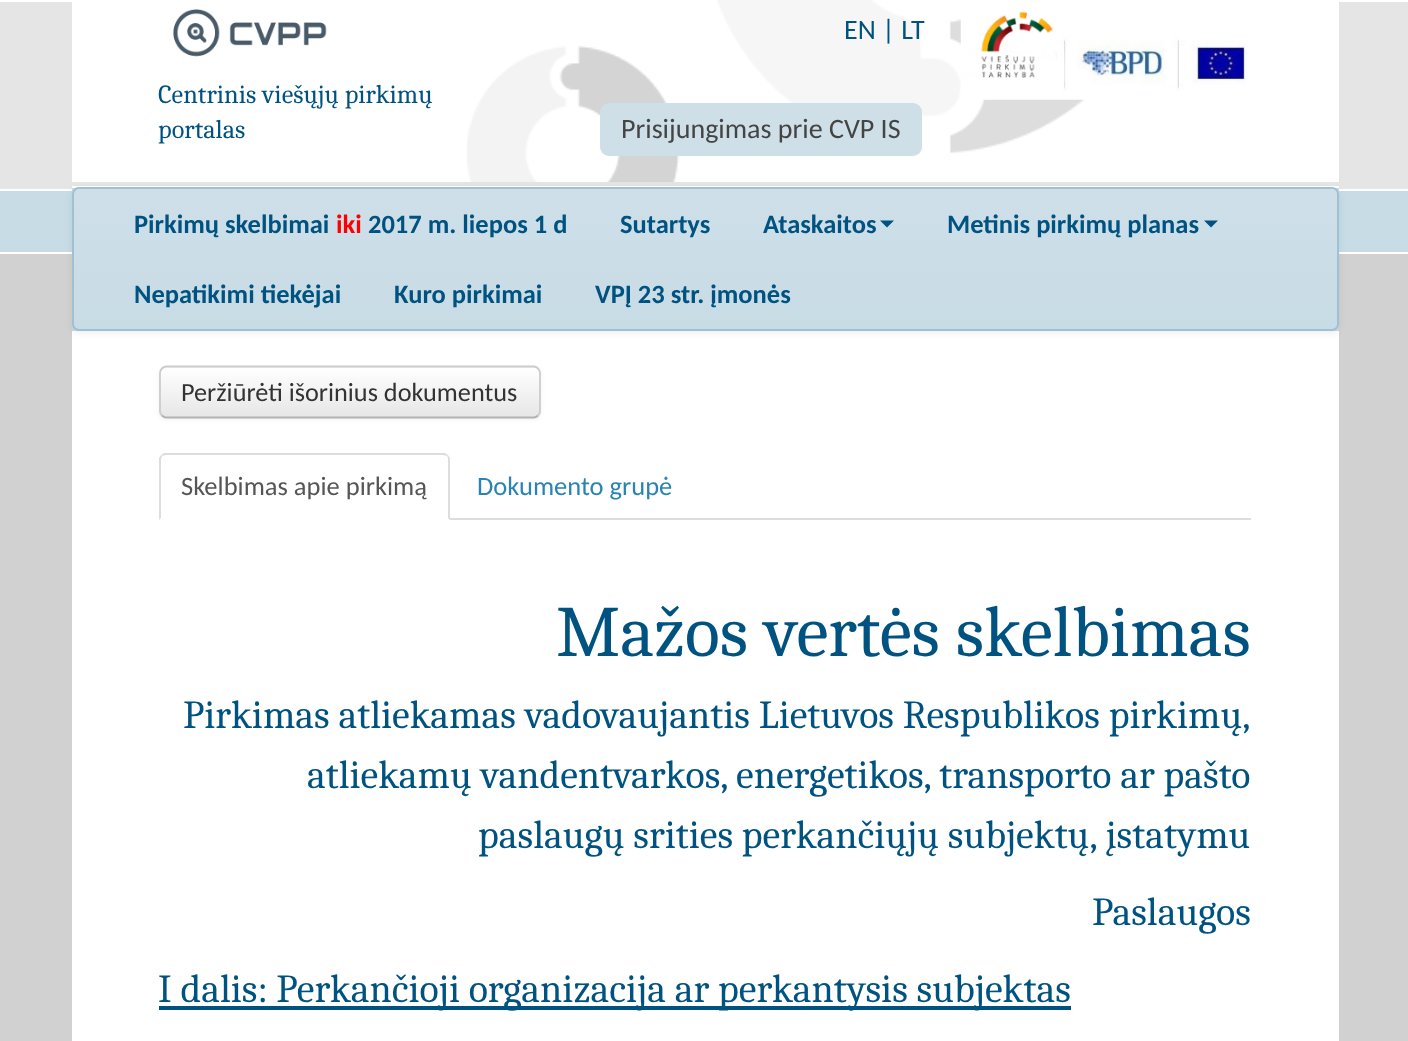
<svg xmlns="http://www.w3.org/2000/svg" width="1408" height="1041">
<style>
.a{font:26.25px Caladea;fill:#005380}
.b{font:28px Carlito;fill:#005380}
.c{font:28px Carlito;fill:#444}
.d{font:bold 26.5px Carlito;fill:#005380}
.e{font:bold 26.5px Carlito;fill:#f00}
.f{font:26.25px Carlito;fill:#333}
.g{font:26.5px Carlito;fill:#555}
.h{font:26.5px Carlito;fill:#2a84b3}
.i{font:72.25px Caladea;fill:#005380}
.j{font:39.9px Caladea;fill:#005380}
</style>
<defs>
<clipPath id="clip1"><rect x="72" y="187" width="1267" height="144" rx="7"/></clipPath>
<linearGradient id="g1" gradientUnits="userSpaceOnUse" x1="705" y1="189" x2="705" y2="329"><stop offset="0" stop-color="#cedfe8"/><stop offset="1" stop-color="#c8dce6"/></linearGradient>
<clipPath id="clip2"><rect x="159" y="366" width="382" height="52" rx="7"/></clipPath>
<linearGradient id="g2" gradientUnits="userSpaceOnUse" x1="350" y1="368" x2="350" y2="417"><stop offset="0" stop-color="#fff"/><stop offset="1" stop-color="#e6e6e6"/></linearGradient>
</defs>
<rect width="100%" height="100%" fill="#d1d1d1"/>
<path fill="#e5e5e5" d="M0 2h1408v187H0z"/>
<path fill="#fff" d="M0 0h1408v2H0z"/>
<path fill="#fff" d="M72 2h1267v180H72z"/>
<image href="1.png" x="466" y="0" width="620" height="182"/>
<image href="2.png" x="173" y="9" width="154" height="48"/>
<rect fill="#cedfe8" x="600" y="103" width="322" height="53" rx="9"/>
<image href="3.png" x="960" y="0" width="288" height="100"/>
<path fill="#c8dce6" d="M0 191h1408v61H0z"/>
<path fill="#fff" d="M0 189h1408v2H0z"/>
<path fill="#fff" d="M0 252h1408v2H0z"/>
<path fill="#c8dce6" d="M72 188h1267v143H72z"/>
<path fill="#fff" d="M72 186h1267v2H72z"/>
<path fill="#fff" d="M72 331h1267v710H72z"/>
<rect fill="#00000012" filter="blur(3.5px)" x="72" y="189" width="1267" height="144" rx="7"/>
<g clip-path="url(#clip1)">
<path fill="url(#g1)" d="M72 189h1267v140H72z"/>
</g>
<rect fill="none" stroke="#9ec1d3" stroke-width="2" x="73" y="188" width="1265" height="142" rx="6"/>
<path fill="#005380" d="M880 220.5h14l-7 7z"/>
<path fill="#005380" d="M1204 220.5h14l-7 7z"/>
<rect fill="#0000000d" filter="blur(2px)" x="159" y="368" width="382" height="52" rx="7"/>
<rect fill="#f5f5f5" x="159" y="366" width="382" height="52" rx="7"/>
<g clip-path="url(#clip2)">
<path fill="url(#g2)" d="M159 368h382v49H159z"/>
</g>
<path fill="none" stroke="#b3b3b3" stroke-width="1.8" d="M538 415.5c-1 1-2.5 2-4 2h-368c-1.5 0-3-1-4-2"/>
<path fill="none" stroke="#ccc" stroke-width="1.8" d="M162 415.5c-1-1-2-2.5-2-4.5v-38c0-2 1-3.5 2-4.5c1-1 2.5-2 4-2h368c1.5 0 3 1 4 2c1 1 2 2.5 2 4.5v38c0 2-1 3.5-2 4.5"/>
<path fill="#ddd" d="M450 518h801v2H450z"/>
<path fill="#ddd" d="M166 455c-2 0-3 1-4 1l-1-1l3-2h281l3 2l-1 1c-1 0-3-1-4-1z"/>
<path fill="#ddd" d="M448 455l2 3v62l-2-2v-58c0-2 0-3-1-4z"/>
<path fill="#ddd" d="M159 520v-62l2-3l1 1c0 1-1 2-1 4v58z"/>
<path fill="#005380" d="M159 1006h912v4H159z"/>
<text class="a" x="158" y="103">Centrinis viešųjų pirkimų</text>
<text class="a" x="158" y="138">portalas</text>
<text class="b" x="844" y="39">EN | LT</text>
<text class="c" x="621" y="138">Prisijungimas prie CVP IS</text>
<text class="d" x="134" y="233">Pirkimų skelbimai</text>
<text class="e" x="336" y="233">iki</text>
<text class="d" x="368" y="233">2017 m. liepos 1 d</text>
<text class="d" x="620" y="233">Sutartys</text>
<text class="d" x="763" y="233">Ataskaitos</text>
<text class="d" x="947" y="233">Metinis pirkimų planas</text>
<text class="d" x="134" y="303">Nepatikimi tiekėjai</text>
<text class="d" x="394" y="303">Kuro pirkimai</text>
<text class="d" x="595" y="303">VPĮ 23 str. įmonės</text>
<text class="f" x="181" y="401">Peržiūrėti išorinius dokumentus</text>
<text class="g" x="181" y="495">Skelbimas apie pirkimą</text>
<text class="h" x="477" y="495">Dokumento grupė</text>
<text class="i" x="556" y="656">Mažos vertės skelbimas</text>
<text class="j" x="183" y="728">Pirkimas atliekamas vadovaujantis Lietuvos Respublikos pirkimų,</text>
<text class="j" x="307" y="788">atliekamų vandentvarkos, energetikos, transporto ar pašto</text>
<text class="j" x="478" y="848">paslaugų srities perkančiųjų subjektų, įstatymu</text>
<text class="j" x="1092" y="925">Paslaugos</text>
<text class="j" x="158" y="1002">I dalis: Perkančioji organizacija ar perkantysis subjektas</text>
</svg>
